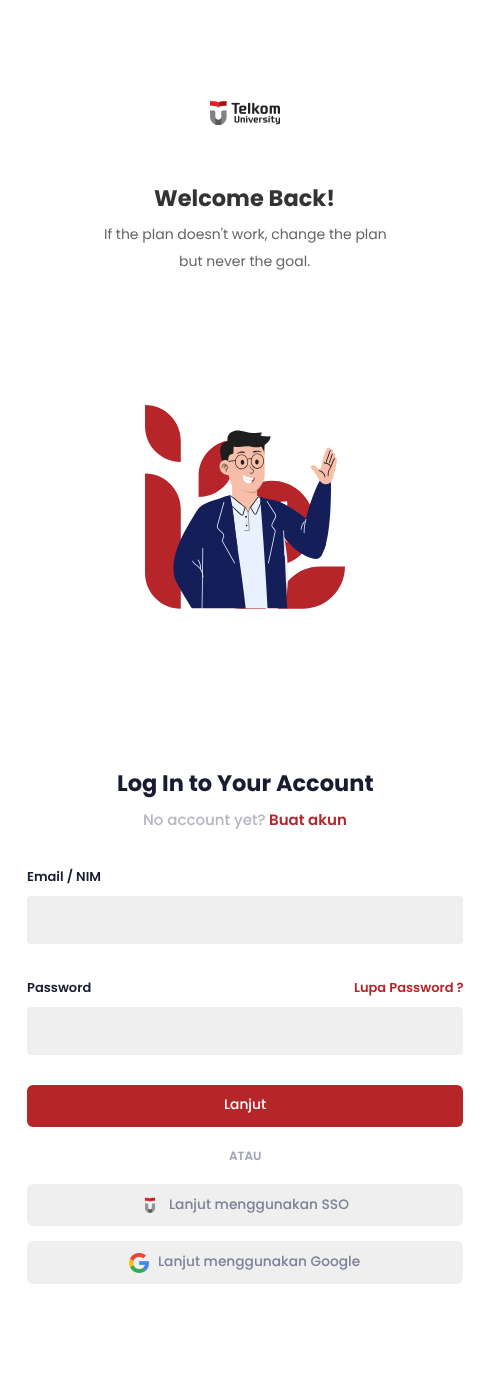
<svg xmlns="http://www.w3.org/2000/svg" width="490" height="1389">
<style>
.a{font:bold 22.5px Poppins;fill:#333}
.b{font:14px Poppins;fill:#666}
.c{font:bold 22.5px Poppins;fill:#181c32}
.d{font:500 15px Poppins;fill:#b5b5c3}
.e{font:600 15px Poppins;fill:#b6252a}
.f{font:600 13px Poppins;fill:#181c32}
.g{font:600 13px Poppins;fill:#b6252a}
.h{font:500 13.75px Poppins;fill:#fff}
.i{font:600 12px Poppins;fill:#a1a5b7}
.j{font:500 13.75px Poppins;fill:#7e8299}
</style>
<rect width="100%" height="100%" fill="#fff"/>
<image href="1.png" x="210" y="101" width="70" height="24"/>
<image href="2.png" x="145" y="405" width="200" height="204"/>
<rect fill="#efefef" x="27" y="896" width="436" height="48" rx="4"/>
<rect fill="#efefef" x="27" y="1007" width="436" height="48" rx="4"/>
<rect fill="#b6252a" x="27" y="1085" width="436" height="42" rx="6"/>
<rect fill="#efefef" x="27" y="1184" width="436" height="42" rx="6"/>
<image href="3.png" x="145" y="1197" width="11" height="16"/>
<rect fill="#efefef" x="27" y="1241" width="436" height="43" rx="6"/>
<image href="4.png" x="129" y="1253" width="20" height="20"/>
<text class="a" x="154" y="206">Welcome Back!</text>
<text class="b" x="104" y="239">If the plan doesn't work, change the plan</text>
<text class="b" x="179" y="266">but never the goal.</text>
<text class="c" x="117" y="791">Log In to Your Account</text>
<text class="d" x="143" y="825">No account yet?</text>
<text class="e" x="269" y="825">Buat akun</text>
<text class="f" x="27" y="881">Email / NIM</text>
<text class="f" x="27" y="992">Password</text>
<text class="g" x="354" y="992">Lupa Password ?</text>
<text class="h" x="224" y="1109">Lanjut</text>
<text class="i" x="229" y="1160">ATAU</text>
<text class="j" x="169" y="1209">Lanjut menggunakan SSO</text>
<text class="j" x="158" y="1266">Lanjut menggunakan Google</text>
</svg>
